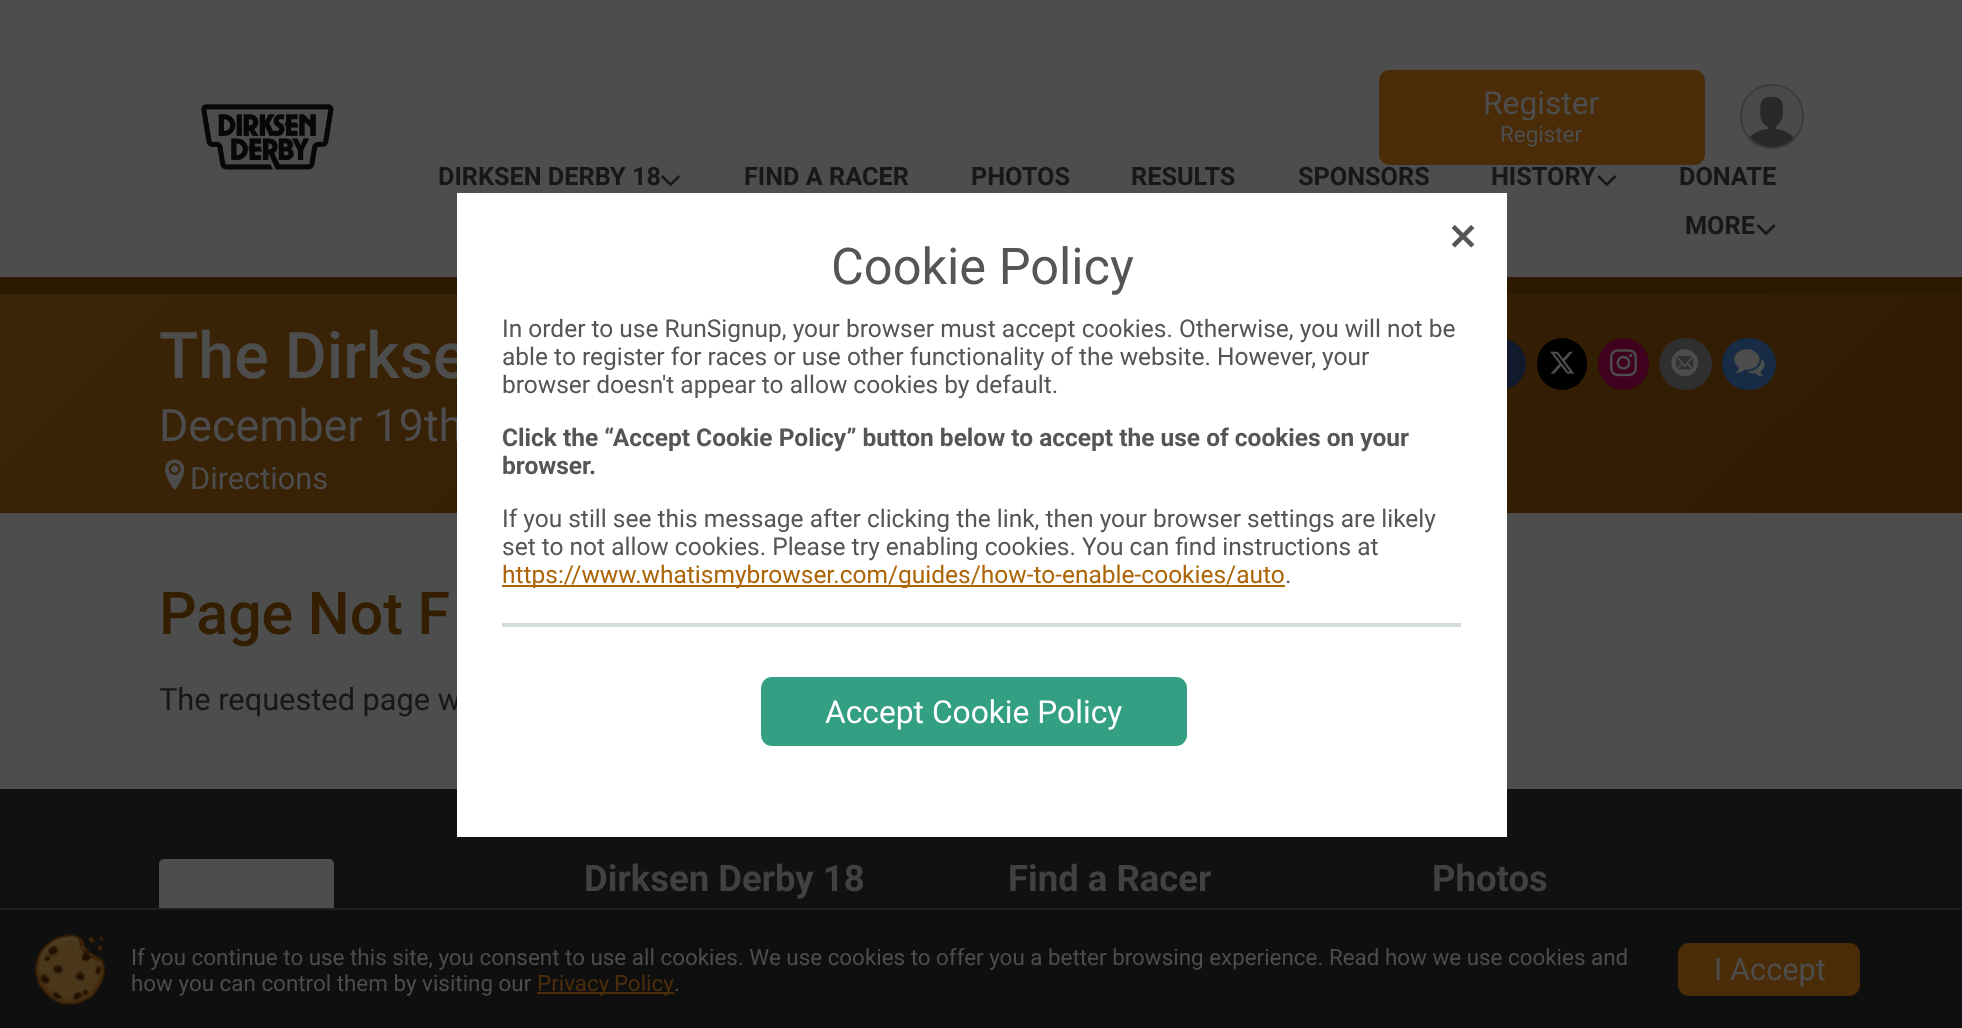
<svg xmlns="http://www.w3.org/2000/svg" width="1962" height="1028">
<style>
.a{font:31.75px Roboto;fill:#4d4d4d}
.b{font:22.4px Roboto;fill:#4d4d4d}
.c{font:bold 25.25px Roboto;fill:#171717}
.d{font:500 64.5px Roboto;fill:#4d4d4d}
.e{font:44.75px Roboto;fill:#4d4d4d}
.f{font:30.75px Roboto;fill:#4d4d4d}
.g{font:500 59px Roboto;fill:#341e02}
.h{font:30.75px Roboto;fill:#171717}
.i{font:bold 36.5px Roboto;fill:#414141}
.j{font:50.5px Roboto;fill:#555}
.k{font:24.5px Roboto;fill:#555}
.l{font:bold 24.5px Roboto;fill:#555}
.m{font:24.5px Roboto;fill:#ac6406}
.n{font:31.75px Roboto;fill:#fff}
.o{font:22.4px Roboto;fill:#4c2e0b}
</style>
<defs>
<linearGradient id="g1" gradientUnits="userSpaceOnUse" x1="1527" y1="949" x2="436" y2="-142"><stop offset="0" stop-color="#301c02"/><stop offset="1" stop-color="#3b2407"/></linearGradient>
</defs>
<rect width="100%" height="100%" fill="#4d4d4d"/>
<image href="1.png" x="201" y="104" width="133" height="66"/>
<rect fill="#4a2d08" x="1379" y="70" width="326" height="95" rx="11"/>
<image href="2.png" x="1741" y="86" width="61" height="61"/>
<rect fill="none" stroke="#3d3d3d" stroke-width="2" x="1741" y="85" width="62" height="63" rx="31"/>
<image href="3.png" x="661" y="175" width="19" height="12"/>
<image href="4.png" x="1597" y="175" width="20" height="12"/>
<image href="5.png" x="1756" y="224" width="20" height="12"/>
<path fill="url(#g1)" d="M0 294h1962v219H0z"/>
<path fill="#2b1902" d="M0 277h1962v17H0z"/>
<image href="6.png" x="165" y="459" width="20" height="32"/>
<circle fill="#11192d" cx="1500" cy="364" r="26"/>
<rect fill="#000" x="1537" y="338" width="50" height="52" rx="25"/>
<image href="7.png" x="1550" y="351" width="25" height="23"/>
<rect fill="#40011f" x="1598" y="338" width="51" height="52" rx="25.5"/>
<image href="8.png" x="1610" y="349" width="27" height="28"/>
<rect fill="#2f2f2f" x="1659" y="338" width="53" height="52" rx="26"/>
<image href="9.png" x="1671" y="349" width="28" height="28"/>
<rect fill="#172c44" x="1722" y="338" width="54" height="52" rx="26"/>
<image href="10.png" x="1734" y="349" width="31" height="28"/>
<path fill="#111113" d="M0 789h1962v119H0z"/>
<rect fill="#4d4d4d" x="159" y="859" width="175" height="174" rx="5"/>
<path fill="#0f0f0f" d="M0 910h1962v118H0z"/>
<path fill="#1f1f1f" d="M0 908h1962v2H0z"/>
<image href="12.png" x="35" y="934" width="70" height="71"/>
<path fill="#4c2e0b" d="M537 992h137v2H537z"/>
<rect fill="#4a2d08" x="1678" y="943" width="182" height="53" rx="11"/>
<text class="a" x="1483" y="114">Register</text>
<text class="b" x="1500" y="142">Register</text>
<text class="c" x="438" y="185">DIRKSEN DERBY 18</text>
<text class="c" x="744" y="185">FIND A RACER</text>
<text class="c" x="971" y="185">PHOTOS</text>
<text class="c" x="1131" y="185">RESULTS</text>
<text class="c" x="1298" y="185">SPONSORS</text>
<text class="c" x="1491" y="185">HISTORY</text>
<text class="c" x="1679" y="185">DONATE</text>
<text class="c" x="1685" y="234">MORE</text>
<text class="d" x="159" y="378">The Dirkse</text>
<text class="e" x="159" y="441">December 19th</text>
<text class="f" x="190" y="489">Directions</text>
<text class="g" x="159" y="634">Page Not F</text>
<text class="h" x="159" y="710">The requested page w</text>
<text class="i" x="584" y="891">Dirksen Derby 18</text>
<text class="i" x="1008" y="891">Find a Racer</text>
<text class="i" x="1432" y="891">Photos</text>
<path fill="none" stroke="#fff" stroke-width="2" d="M458 194h1048v642H458z"/>
<path fill="#fff" d="M459 195h1046v640H459z"/>
<image href="11.png" x="1451" y="225" width="24" height="23"/>
<text class="j" x="831" y="284">Cookie Policy</text>
<text class="k" x="502" y="337">In order to use RunSignup, your browser must accept cookies. Otherwise, you will not be</text>
<text class="k" x="502" y="365">able to register for races or use other functionality of the website. However, your</text>
<text class="k" x="502" y="393">browser doesn't appear to allow cookies by default.</text>
<text class="l" x="502" y="446">Click the “Accept Cookie Policy” button below to accept the use of cookies on your</text>
<text class="l" x="502" y="474">browser.</text>
<text class="k" x="502" y="527">If you still see this message after clicking the link, then your browser settings are likely</text>
<text class="k" x="502" y="555">set to not allow cookies. Please try enabling cookies. You can find instructions at</text>
<path fill="#ac6406" d="M502 585h783v2H502z"/>
<text class="m" x="502" y="583">https://www.whatismybrowser.com/guides/how-to-enable-cookies/auto</text>
<text class="k" x="1285" y="583">.</text>
<path fill="#d3dbdf" d="M502 623h959v4H502z"/>
<rect fill="#339f83" x="761" y="677" width="426" height="69" rx="11"/>
<text class="n" x="825" y="723">Accept Cookie Policy</text>
<text class="b" x="131" y="965">If you continue to use this site, you consent to use all cookies. We use cookies to offer you a better browsing experience. Read how we use cookies and</text>
<text class="b" x="131" y="991">how you can control them by visiting our</text>
<text class="o" x="537" y="991" word-spacing="-1">Privacy Policy</text>
<text class="b" x="674" y="991">.</text>
<text class="f" x="1714" y="980">I Accept</text>
</svg>
